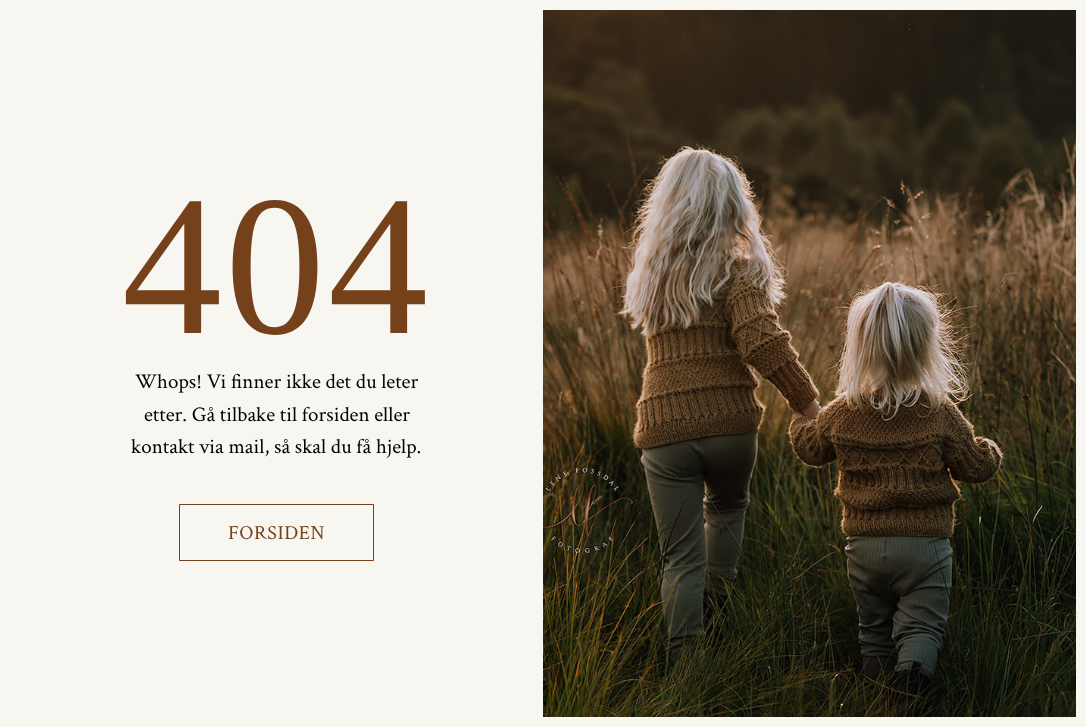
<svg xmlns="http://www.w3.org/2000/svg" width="1086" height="727">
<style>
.a{font:200px Liberation Serif;letter-spacing:3px;fill:#74411a}
.b{font:21px Crimson Text;fill:#000}
.c{font:20px Crimson Text;letter-spacing:0.5px;fill:#74411a}
</style>
<rect width="100%" height="100%" fill="#f8f6f1"/>
<path fill="none" stroke="#74411a" d="M179.5 504.5h194v56H179.5z"/>
<image href="1.png" x="543" y="10" width="533" height="707"/>
<text class="a" x="122" y="333">404</text>
<text class="b" x="135" y="388">Whops! Vi finner ikke det du leter</text>
<text class="b" x="144" y="421">etter. Gå tilbake til forsiden eller</text>
<text class="b" x="131" y="453">kontakt via mail, så skal du få hjelp.</text>
<text class="c" x="228" y="539">FORSIDEN</text>
</svg>
